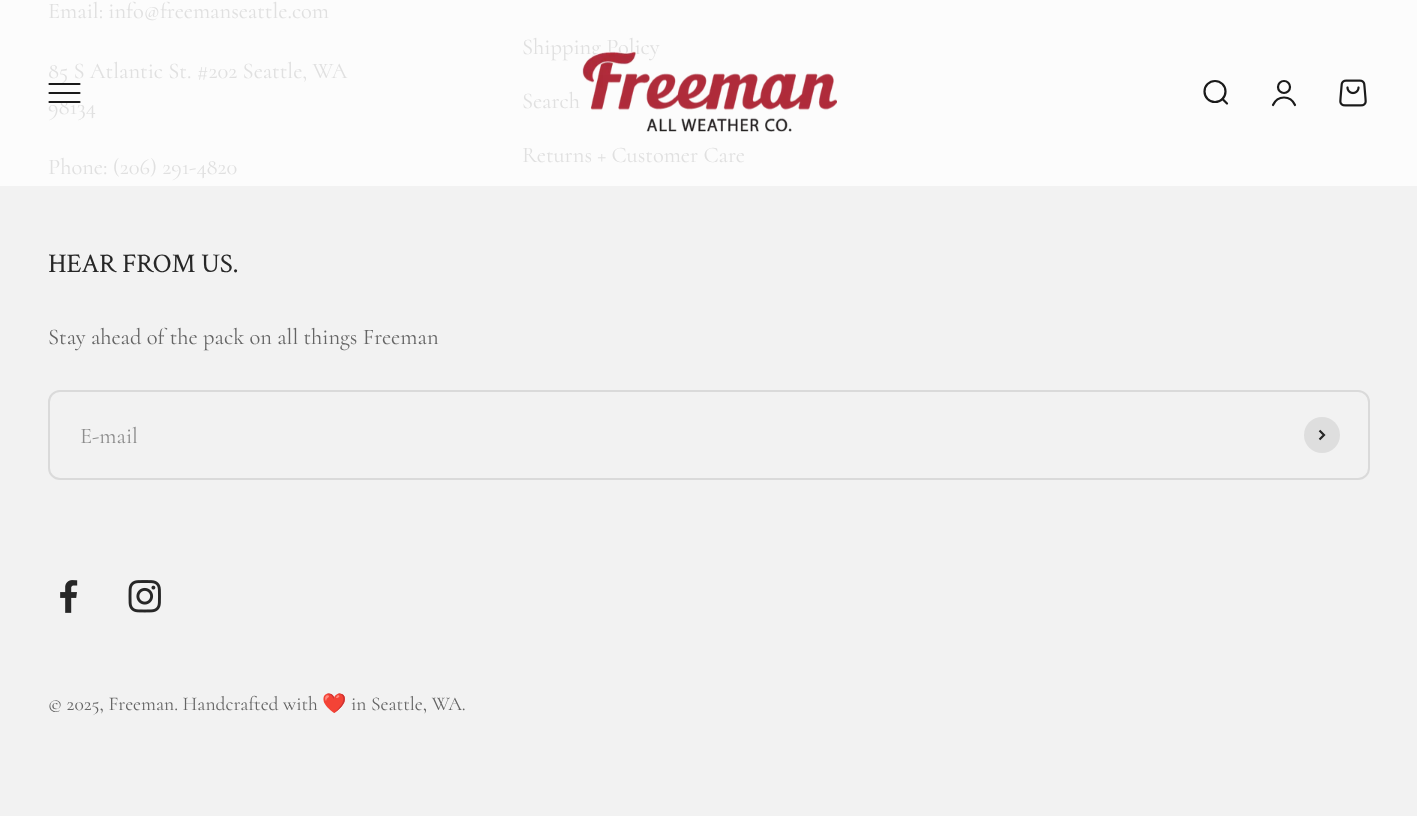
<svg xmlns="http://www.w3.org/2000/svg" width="1417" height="816">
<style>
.a{font:22.5px Cormorant;fill:#e0e0e0}
.b{font:27px Crimson Text;letter-spacing:-0.25px;fill:#272727}
.c{font:22.5px Cormorant;fill:#646464}
.d{font:22.5px Cormorant;fill:#8d8d8d}
.e{font:19.5px Cormorant;fill:#646464}
.f{font:19.5px Noto Color Emoji;fill:#646464}
</style>
<rect width="100%" height="100%" fill="#f2f2f2"/>
<path fill="#fcfcfc" d="M0 0h1417v186H0z"/>
<rect fill="none" stroke="#dadada" stroke-width="2" x="49" y="391" width="1320" height="88" rx="11"/>
<circle fill="#dedede" cx="1322" cy="435" r="18"/>
<path fill="none" stroke="#272727" stroke-width="2.2" d="M1319.5 439.5l4.5-4.5l-4.5-4.5"/>
<image href="1.png" x="60" y="580" width="18" height="33"/>
<image href="2.png" x="128" y="580" width="33" height="33"/>
<circle fill="none" stroke="#1a1a1a" stroke-width="2.2" cx="1215" cy="91.5" r="10.5"/>
<path fill="none" stroke="#1a1a1a" stroke-width="2.2" stroke-linecap="round" stroke-linejoin="round" d="M1222.5 99l4.5 4.5"/>
<circle fill="none" stroke="#1a1a1a" stroke-width="2.2" cx="1284" cy="87" r="6"/>
<path fill="none" stroke="#1a1a1a" stroke-width="2.2" stroke-linecap="round" d="M1273 105c4.5-10 17.5-10 22 0"/>
<image href="4.png" x="1339" y="79" width="28" height="28"/>
<text class="a" x="48" y="18">Email: info@freemanseattle.com</text>
<text class="a" x="48" y="78">85 S Atlantic St. #202 Seattle, WA</text>
<text class="a" x="48" y="114">98134</text>
<text class="a" x="48" y="174">Phone: (206) 291-4820</text>
<text class="a" x="522" y="54">Shipping Policy</text>
<text class="a" x="522" y="108">Search</text>
<text class="a" x="522" y="162">Returns + Customer Care</text>
<text class="b" x="48" y="272">HEAR FROM US.</text>
<text class="c" x="48" y="344">Stay ahead of the pack on all things Freeman</text>
<text class="d" x="80" y="443">E-mail</text>
<text class="e" x="48" y="710">© 2025, Freeman. Handcrafted with</text>
<text class="f" x="322" y="710">❤️</text>
<text class="e" x="351" y="710">in Seattle, WA.</text>
<path fill="none" stroke="#1a1a1a" stroke-width="2.2" stroke-linecap="round" d="M49.5 84h30m-30 9h30m-30 9h30"/>
<image href="3.png" x="582" y="51" width="255" height="81"/>
</svg>
